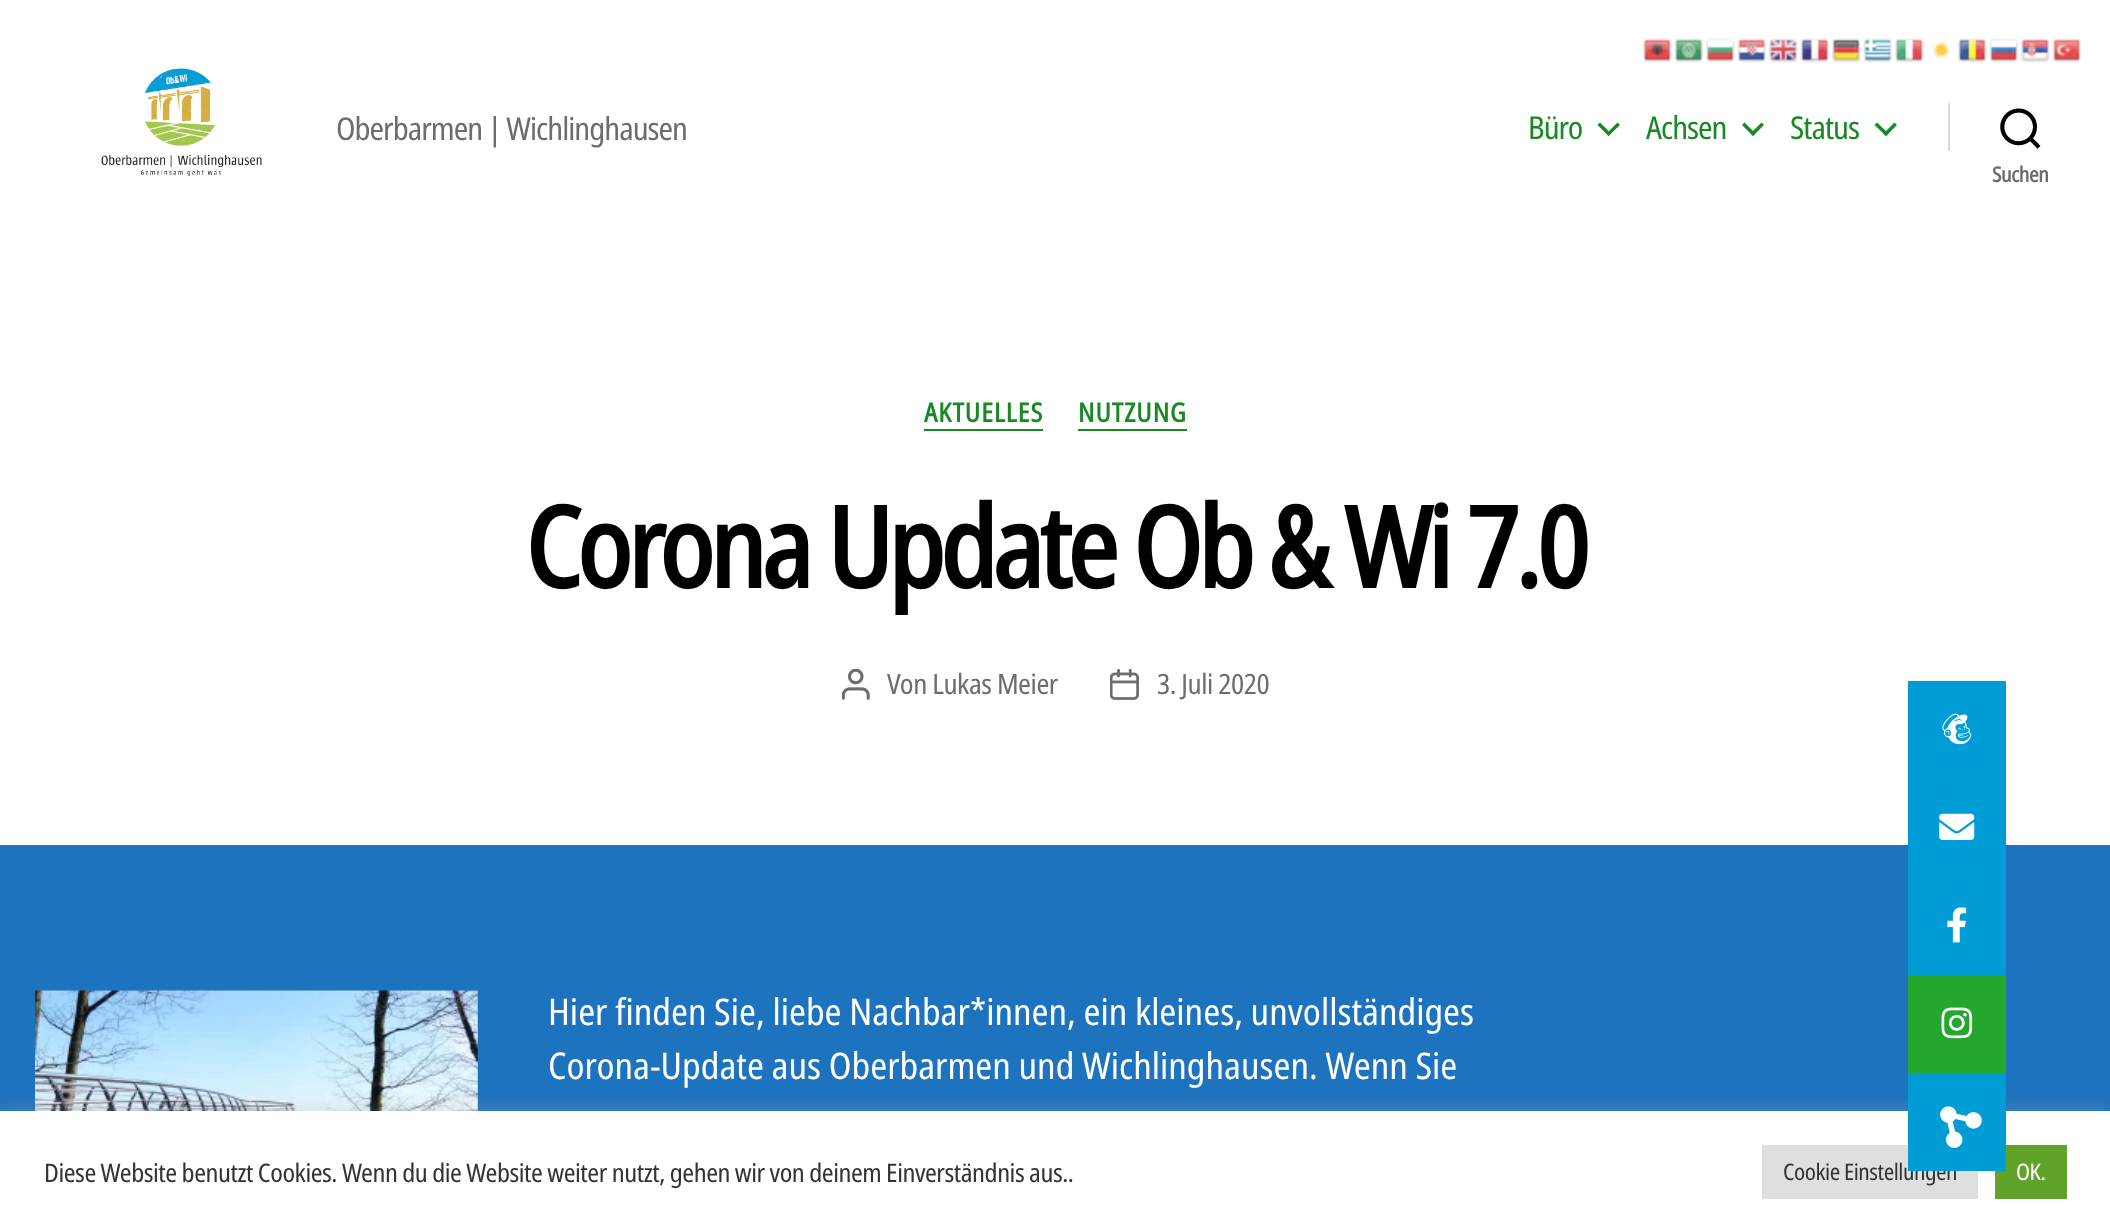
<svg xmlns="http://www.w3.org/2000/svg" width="2110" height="1232">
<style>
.a{font:31.5px Noto Sans;letter-spacing:-1px;fill:#6d6d6d}
.b{font:31.5px Noto Sans;letter-spacing:-1px;fill:#198926}
.c{font:bold 21px Noto Sans;letter-spacing:-0.47px;fill:#6d6d6d}
.d{font:bold 26.25px Noto Sans;letter-spacing:1px;fill:#198926}
.e{font:bold 112px Noto Sans;letter-spacing:-4.65px;fill:#000}
.f{font:28px Noto Sans;letter-spacing:-0.47px;fill:#6d6d6d}
.g{font:36.75px Noto Sans;fill:#fff}
.h{font:25.65px Noto Sans;letter-spacing:-0.47px;fill:#333}
.i{font:22.75px Noto Sans;letter-spacing:-0.47px;fill:#333}
.j{font:22.75px Noto Sans;letter-spacing:-0.47px;fill:#fff}
</style>
<rect width="100%" height="100%" fill="#1e73be"/>
<path fill="#fff" d="M0 0h2110v845H0z"/>
<image href="1.png" x="1643" y="38" width="29" height="25"/>
<image href="2.png" x="1674" y="38" width="29" height="25"/>
<image href="3.png" x="1706" y="38" width="29" height="25"/>
<image href="4.png" x="1737" y="38" width="29" height="25"/>
<image href="5.png" x="1769" y="38" width="29" height="25"/>
<image href="6.png" x="1800" y="38" width="29" height="25"/>
<image href="7.png" x="1832" y="38" width="29" height="25"/>
<image href="8.png" x="1863" y="38" width="29" height="25"/>
<image href="9.png" x="1895" y="38" width="29" height="25"/>
<image href="10.png" x="1931" y="41" width="20" height="18"/>
<image href="11.png" x="1958" y="38" width="29" height="25"/>
<image href="12.png" x="1989" y="38" width="29" height="25"/>
<image href="13.png" x="2021" y="38" width="29" height="25"/>
<image href="14.png" x="2052" y="38" width="29" height="25"/>
<image href="15.png" x="101" y="68" width="161" height="109"/>
<path fill="#198926" d="M1597.5 125l2.5-2.5l11 11l-2.5 2.5z"/>
<path fill="#198926" d="M1606.5 133.5l11-11l2.5 2.5l-11.5 11z"/>
<path fill="#198926" d="M1742 125l2.5-2.5l11 11l-2.5 2.5z"/>
<path fill="#198926" d="M1750.5 133.5l11-11l2.5 2.5l-11 11z"/>
<path fill="#198926" d="M1874.5 125l2.5-2.5l11.5 11l-2.5 2.5z"/>
<path fill="#198926" d="M1883.5 133.5l11-11l2.5 2.5l-11 11z"/>
<path fill="#dbdbdb" d="M1948 103h2v48H1948z"/>
<image href="16.png" x="2000" y="108" width="41" height="41"/>
<path fill="#198926" d="M924 429h119v2H924z"/>
<path fill="#198926" d="M1078 429h109v2H1078z"/>
<image href="17.png" x="842" y="669" width="28" height="31"/>
<image href="18.png" x="1110" y="669" width="29" height="31"/>
<image href="19.png" x="35" y="990" width="443" height="121"/>
<path fill="#009cd5" d="M1908 681h98v294H1908z"/>
<image href="20.png" x="1947" y="907" width="20" height="36"/>
<image href="21.png" x="1942" y="713" width="30" height="32"/>
<image href="22.png" x="1939" y="813" width="36" height="27"/>
<path fill="#25a72e" d="M1908 975h98v98H1908z"/>
<image href="23.png" x="1941" y="1007" width="32" height="32"/>
<path fill="#acabab4d" filter="blur(9px)" d="M0 1110h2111v120H0z"/>
<path fill="#fff" d="M0 1111h2110v121H0z"/>
<path fill="#dedfe0" d="M1762 1145h216v54H1762z"/>
<path fill="#61a229" d="M1995 1145h72v54H1995z"/>
<text class="a" x="336" y="140">Oberbarmen | Wichlinghausen</text>
<text class="b" x="1528" y="139">Büro</text>
<text class="b" x="1646" y="139">Achsen</text>
<text class="b" x="1790" y="139">Status</text>
<text class="c" x="1992" y="182">Suchen</text>
<text class="d" x="924" y="422">AKTUELLES</text>
<text class="d" x="1078" y="422">NUTZUNG</text>
<text class="e" x="525" y="588">Corona Update Ob &amp; Wi 7.0</text>
<text class="f" x="887" y="694">Von Lukas Meier</text>
<text class="f" x="1157" y="694">3. Juli 2020</text>
<text class="g" x="548" y="1025">Hier finden Sie, liebe Nachbar*innen, ein kleines, unvollständiges</text>
<text class="g" x="548" y="1079">Corona-Update aus Oberbarmen und Wichlinghausen. Wenn Sie</text>
<text class="h" x="44" y="1182">Diese Website benutzt Cookies. Wenn du die Website weiter nutzt, gehen wir von deinem Einverständnis aus..</text>
<text class="i" x="1783" y="1180">Cookie Einstellungen</text>
<path fill="#009cd5" d="M1908 1073h98v98H1908z"/>
<image href="24.png" x="1940" y="1106" width="42" height="42"/>
<text class="j" x="2016" y="1180">OK.</text>
</svg>
